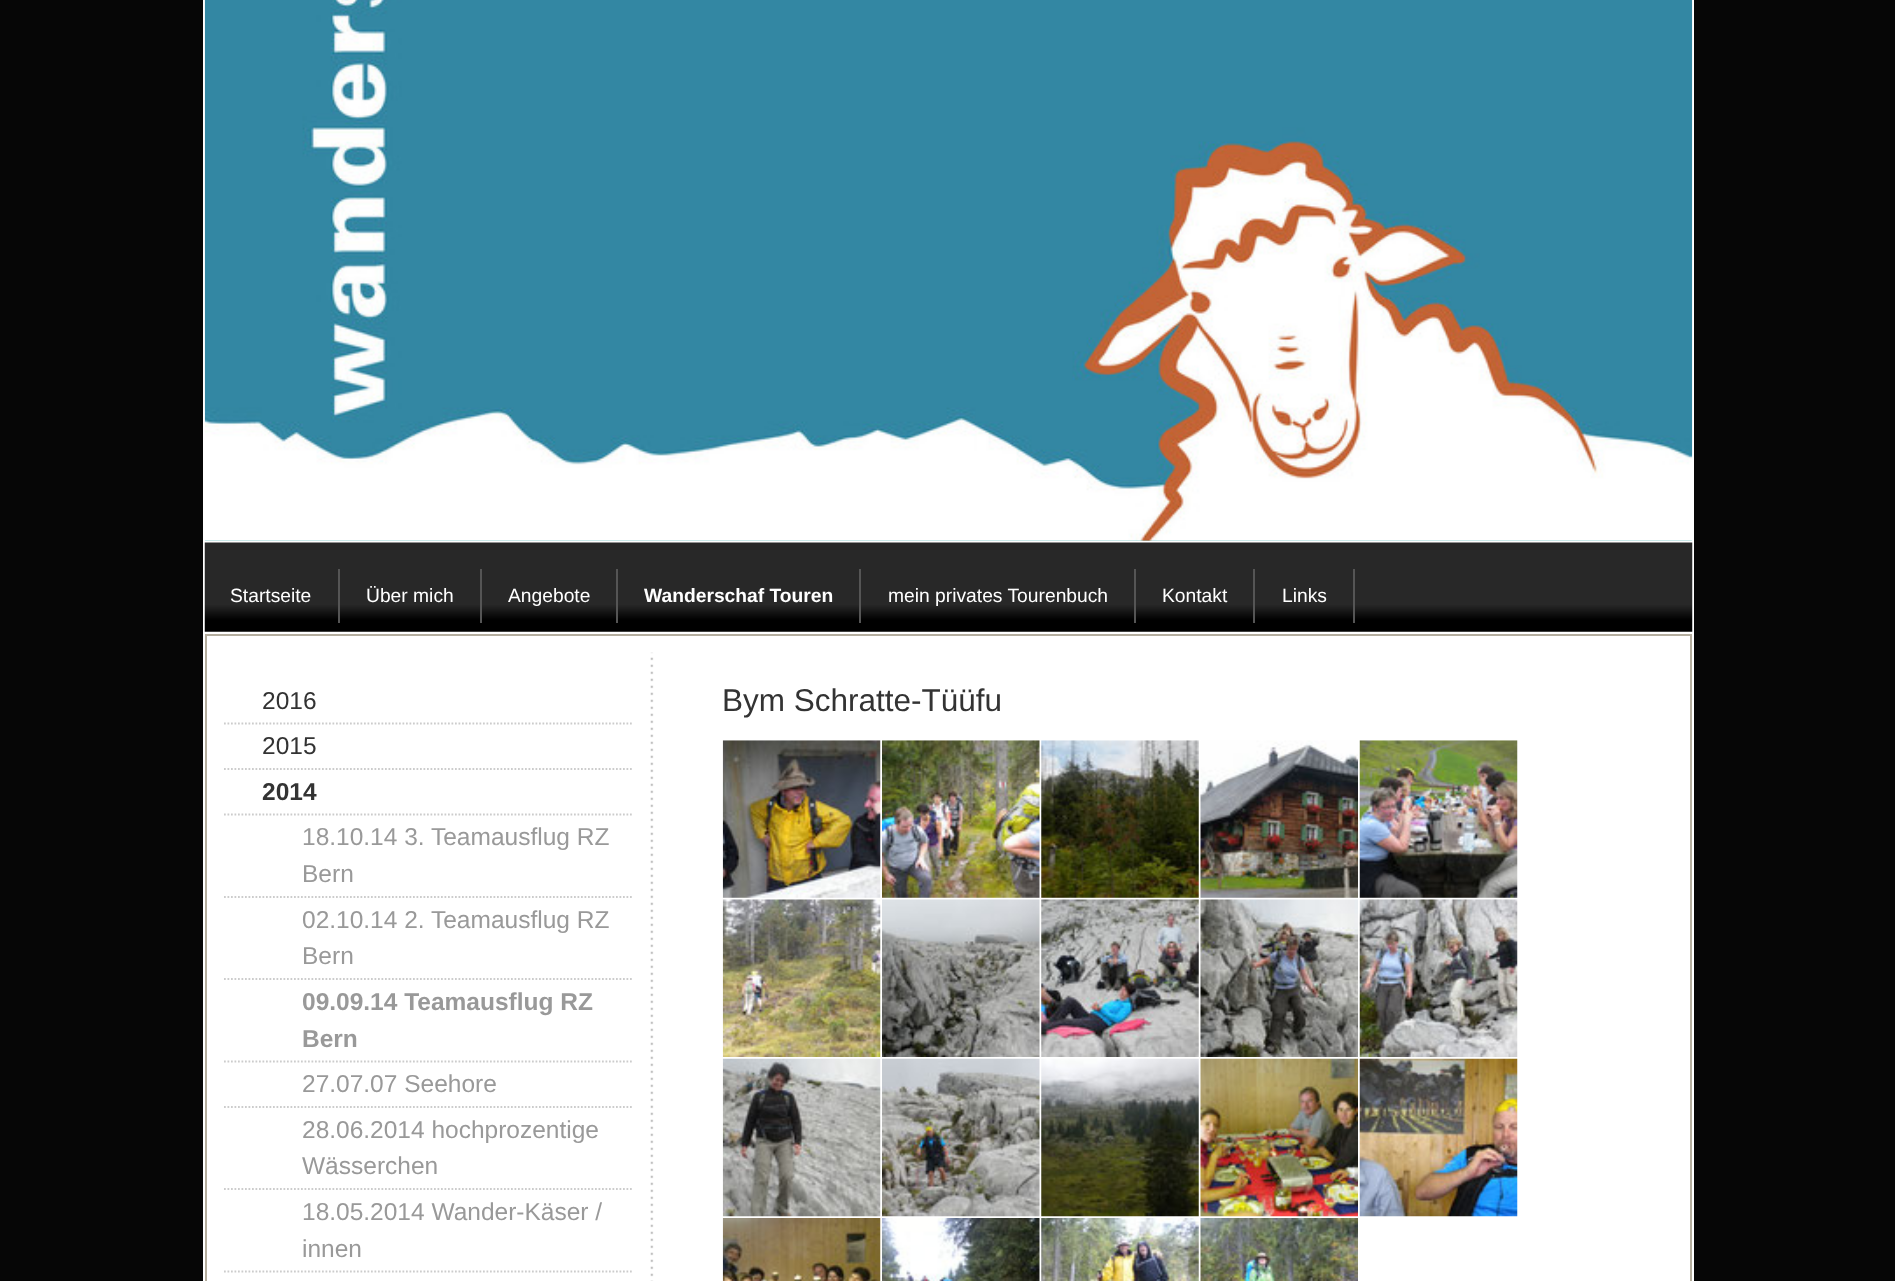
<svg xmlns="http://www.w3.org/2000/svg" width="1895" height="1281">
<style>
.a{font:19.25px Liberation Sans;fill:#fff}
.b{font:bold 19.25px Liberation Sans;fill:#fff}
.c{font:24.5px Liberation Sans;fill:#333}
.d{font:bold 24.5px Liberation Sans;fill:#333}
.e{font:24.5px Liberation Sans;fill:#999}
.f{font:bold 24.5px Liberation Sans;fill:#999}
.g{font:31.5px Liberation Sans;fill:#333}
</style>
<rect width="100%" height="100%" fill="#060606"/>
<path fill="#fff" d="M203 0h1491v1281H203z"/>
<path fill="#89cece" d="M205 540h1487v1H205z"/>
<image href="1.png" x="204" y="0" width="1489" height="541"/>
<image href="2.png" x="204" y="542" width="1489" height="90"/>
<path fill="#555" d="M338 569h2v54H338z"/>
<path fill="#555" d="M480 569h2v54H480z"/>
<path fill="#555" d="M616 569h2v54H616z"/>
<path fill="#555" d="M859 569h2v54H859z"/>
<path fill="#555" d="M1134 569h2v54H1134z"/>
<path fill="#555" d="M1253 569h2v54H1253z"/>
<path fill="#555" d="M1353 569h2v54H1353z"/>
<path fill="none" stroke="#b4ad9e" stroke-width="2" d="M206 635h1485v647H206z"/>
<path fill="none" stroke="#ccc" stroke-width="1.8" stroke-dasharray="1.75 1.75" d="M224 723.5h409.5"/>
<path fill="none" stroke="#ccc" stroke-width="1.8" stroke-dasharray="1.75 1.75" d="M224 769h409.5"/>
<path fill="none" stroke="#ccc" stroke-width="1.8" stroke-dasharray="1.75 1.75" d="M224 814.5h409.5"/>
<path fill="none" stroke="#ccc" stroke-width="1.8" stroke-dasharray="1.75 1.75" d="M224 897h409.5"/>
<path fill="none" stroke="#ccc" stroke-width="1.8" stroke-dasharray="1.75 1.75" d="M224 979h409.5"/>
<path fill="none" stroke="#ccc" stroke-width="1.8" stroke-dasharray="1.75 1.75" d="M224 1061.5h409.5"/>
<path fill="none" stroke="#ccc" stroke-width="1.8" stroke-dasharray="1.75 1.75" d="M224 1107h409.5"/>
<path fill="none" stroke="#ccc" stroke-width="1.8" stroke-dasharray="1.75 1.75" d="M224 1189h409.5"/>
<path fill="none" stroke="#ccc" stroke-width="1.8" stroke-dasharray="1.75 1.75" d="M224 1271.5h409.5"/>
<image href="3.png" x="650" y="652" width="4" height="629"/>
<image href="4.png" x="722" y="740" width="159" height="158"/>
<image href="5.png" x="882" y="740" width="158" height="158"/>
<image href="6.png" x="1041" y="740" width="158" height="158"/>
<image href="7.png" x="1200" y="740" width="158" height="158"/>
<image href="8.png" x="1359" y="740" width="159" height="158"/>
<image href="9.png" x="722" y="899" width="159" height="158"/>
<image href="10.png" x="882" y="899" width="158" height="158"/>
<image href="11.png" x="1041" y="899" width="158" height="158"/>
<image href="12.png" x="1200" y="899" width="158" height="158"/>
<image href="13.png" x="1359" y="899" width="159" height="158"/>
<image href="14.png" x="722" y="1058" width="159" height="159"/>
<image href="15.png" x="882" y="1058" width="158" height="159"/>
<image href="16.png" x="1041" y="1058" width="158" height="159"/>
<image href="17.png" x="1200" y="1058" width="158" height="159"/>
<image href="18.png" x="1359" y="1058" width="159" height="159"/>
<image href="19.png" x="722" y="1218" width="159" height="63"/>
<image href="20.png" x="882" y="1218" width="158" height="63"/>
<image href="21.png" x="1041" y="1218" width="158" height="63"/>
<image href="22.png" x="1200" y="1218" width="158" height="63"/>
<text class="a" x="230" y="602">Startseite</text>
<text class="a" x="366" y="602">Über mich</text>
<text class="a" x="508" y="602">Angebote</text>
<text class="b" x="644" y="602">Wanderschaf Touren</text>
<text class="a" x="888" y="602">mein privates Tourenbuch</text>
<text class="a" x="1162" y="602">Kontakt</text>
<text class="a" x="1282" y="602">Links</text>
<text class="c" x="262" y="709">2016</text>
<text class="c" x="262" y="754">2015</text>
<text class="d" x="262" y="800">2014</text>
<text class="e" x="302" y="845">18.10.14 3. Teamausflug RZ</text>
<text class="e" x="302" y="882">Bern</text>
<text class="e" x="302" y="928">02.10.14 2. Teamausflug RZ</text>
<text class="e" x="302" y="964">Bern</text>
<text class="f" x="302" y="1010">09.09.14 Teamausflug RZ</text>
<text class="f" x="302" y="1047">Bern</text>
<text class="e" x="302" y="1092">27.07.07 Seehore</text>
<text class="e" x="302" y="1138">28.06.2014 hochprozentige</text>
<text class="e" x="302" y="1174">Wässerchen</text>
<text class="e" x="302" y="1220">18.05.2014 Wander-Käser /</text>
<text class="e" x="302" y="1257">innen</text>
<text class="g" x="722" y="711">Bym Schratte-Tüüfu</text>
</svg>
